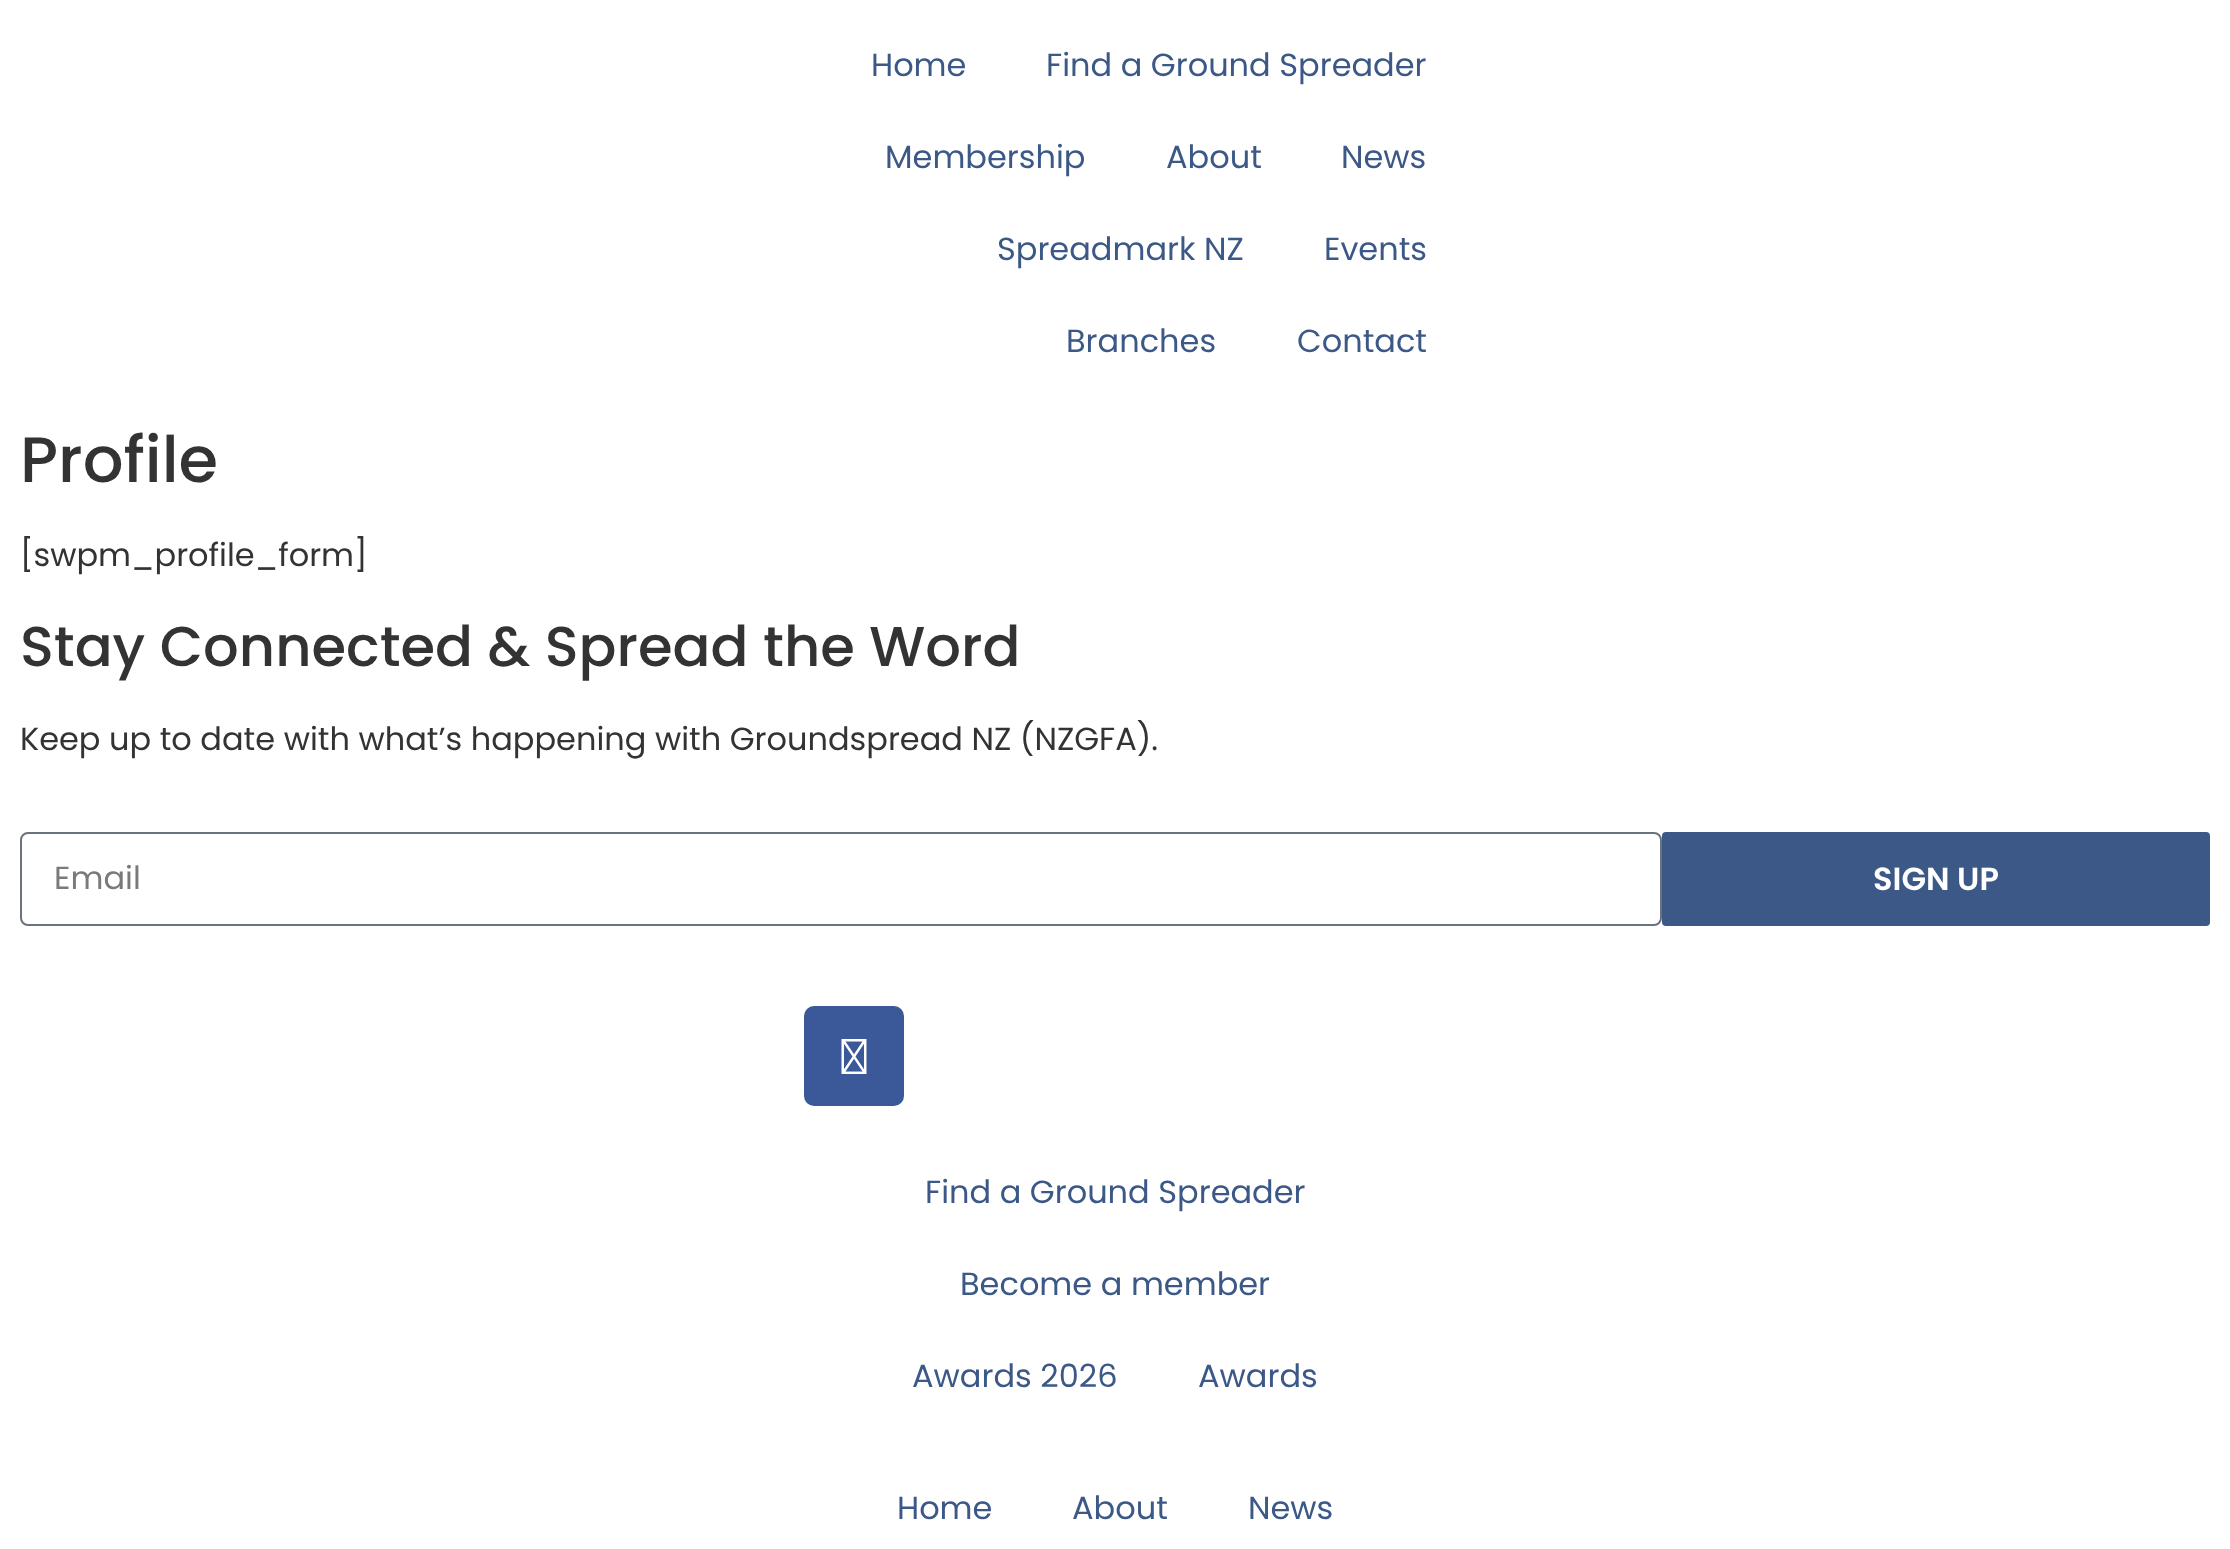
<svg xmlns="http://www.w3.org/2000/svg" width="2230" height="1549">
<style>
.a{font:32px Poppins;fill:#3b5887}
.b{font:500 64px Poppins;fill:#333}
.c{font:32px Poppins;fill:#333}
.d{font:500 56px Poppins;fill:#333}
.e{font:32px Poppins;fill:#797a7c}
.f{font:600 32px Poppins;fill:#fff}
</style>
<rect width="100%" height="100%" fill="#fff"/>
<rect fill="none" stroke="#69727d" stroke-width="2" x="21" y="833" width="1640" height="92" rx="7"/>
<rect fill="#3b5887" x="1662" y="832" width="548" height="94" rx="4"/>
<rect fill="#3b5998" x="804" y="1006" width="100" height="100" rx="10"/>
<image href="1.png" x="841" y="1039" width="26" height="35"/>
<text class="a" x="871" y="76">Home</text>
<text class="a" x="1046" y="76">Find a Ground Spreader</text>
<text class="a" x="885" y="168">Membership</text>
<text class="a" x="1166" y="168">About</text>
<text class="a" x="1341" y="168">News</text>
<text class="a" x="997" y="260">Spreadmark NZ</text>
<text class="a" x="1324" y="260">Events</text>
<text class="a" x="1066" y="352">Branches</text>
<text class="a" x="1297" y="352">Contact</text>
<text class="b" x="20" y="482">Profile</text>
<text class="c" x="20" y="566">[swpm_profile_form]</text>
<text class="d" x="20" y="666">Stay Connected &amp; Spread the Word</text>
<text class="c" x="20" y="750">Keep up to date with what’s happening with Groundspread NZ (NZGFA).</text>
<text class="e" x="54" y="889">Email</text>
<text class="f" x="1873" y="890">SIGN UP</text>
<text class="a" x="925" y="1203">Find a Ground Spreader</text>
<text class="a" x="960" y="1295">Become a member</text>
<text class="a" x="912" y="1387">Awards 2026</text>
<text class="a" x="1198" y="1387">Awards</text>
<text class="a" x="897" y="1519">Home</text>
<text class="a" x="1072" y="1519">About</text>
<text class="a" x="1248" y="1519">News</text>
</svg>
